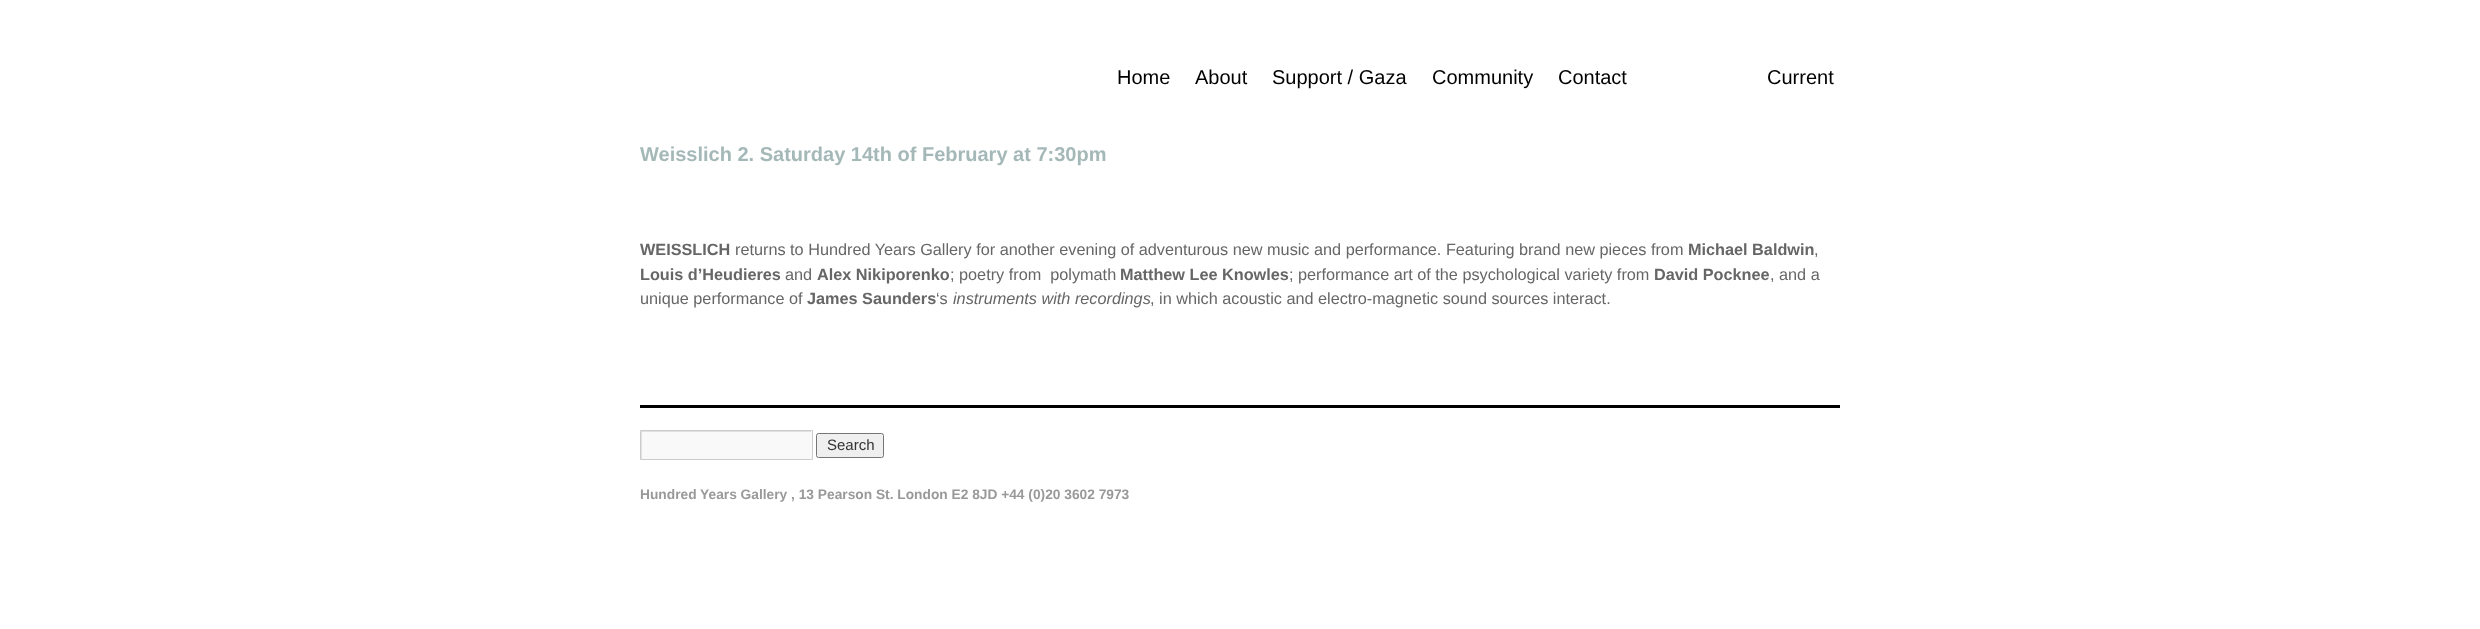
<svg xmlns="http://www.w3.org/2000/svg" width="2480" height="629">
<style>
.a{font:20px Liberation Sans;fill:#000}
.b{font:bold 20px Liberation Sans;fill:#a5b8b8}
.c{font:bold 16.25px Liberation Sans;fill:#666}
.d{font:16.25px Liberation Sans;fill:#666}
.e{font:italic 16.25px Liberation Sans;fill:#666}
.f{font:15px Liberation Sans;fill:#333}
.g{font:bold 13.75px Liberation Sans;fill:#999}
</style>
<defs>
<clipPath id="clip1"><path d="M641 431h170v28H641z"/></clipPath>
</defs>
<rect width="100%" height="100%" fill="#fff"/>
<path fill="#000" d="M640 405h1200v3H640z"/>
<path fill="#f9f9f9" d="M642 431h170v28H642z"/>
<g clip-path="url(#clip1)">
<path fill="#e0e0e0" fill-rule="evenodd" d="M518 308h417v274h-417zm124 124h170v28h-170z"/>
</g>
<path fill="none" stroke="#ccc" d="M640.5 430.5h172v29H640.5z"/>
<rect fill="#efefef" stroke="#767676" x="816.5" y="433.5" width="67" height="24" rx="2"/>
<text class="a" x="1117" y="84">Home</text>
<text class="a" x="1195" y="84">About</text>
<text class="a" x="1272" y="84">Support / Gaza</text>
<text class="a" x="1432" y="84">Community</text>
<text class="a" x="1558" y="84">Contact</text>
<text class="a" x="1767" y="84">Current</text>
<text class="b" x="640" y="161">Weisslich 2. Saturday 14th of February at 7:30pm</text>
<text class="c" x="640" y="255">WEISSLICH</text>
<text class="d" x="735" y="255">returns to Hundred Years Gallery for another evening of adventurous new music and performance. Featuring brand new pieces from</text>
<text class="c" x="1688" y="255">Michael Baldwin</text>
<text class="d" x="1814" y="255">,</text>
<text class="c" x="640" y="280">Louis d’Heudieres</text>
<text class="d" x="785" y="280">and</text>
<text class="c" x="817" y="280">Alex Nikiporenko</text>
<text class="d" xml:space="preserve" x="950" y="280">; poetry from  polymath</text>
<text class="c" x="1120" y="280">Matthew Lee Knowles</text>
<text class="d" x="1289" y="280">; performance art of the psychological variety from</text>
<text class="c" x="1654" y="280">David Pocknee</text>
<text class="d" x="1770" y="280">, and a</text>
<text class="d" x="640" y="304">unique performance of</text>
<text class="c" x="807" y="304">James Saunders</text>
<text class="d" x="936" y="304">‘s</text>
<text class="e" x="953" y="304">instruments with recordings</text>
<text class="d" x="1150" y="304">, in which acoustic and electro-magnetic sound sources interact.</text>
<text class="f" x="827" y="450">Search</text>
<text class="g" x="640" y="499">Hundred Years Gallery , 13 Pearson St. London E2 8JD +44 (0)20 3602 7973</text>
</svg>
